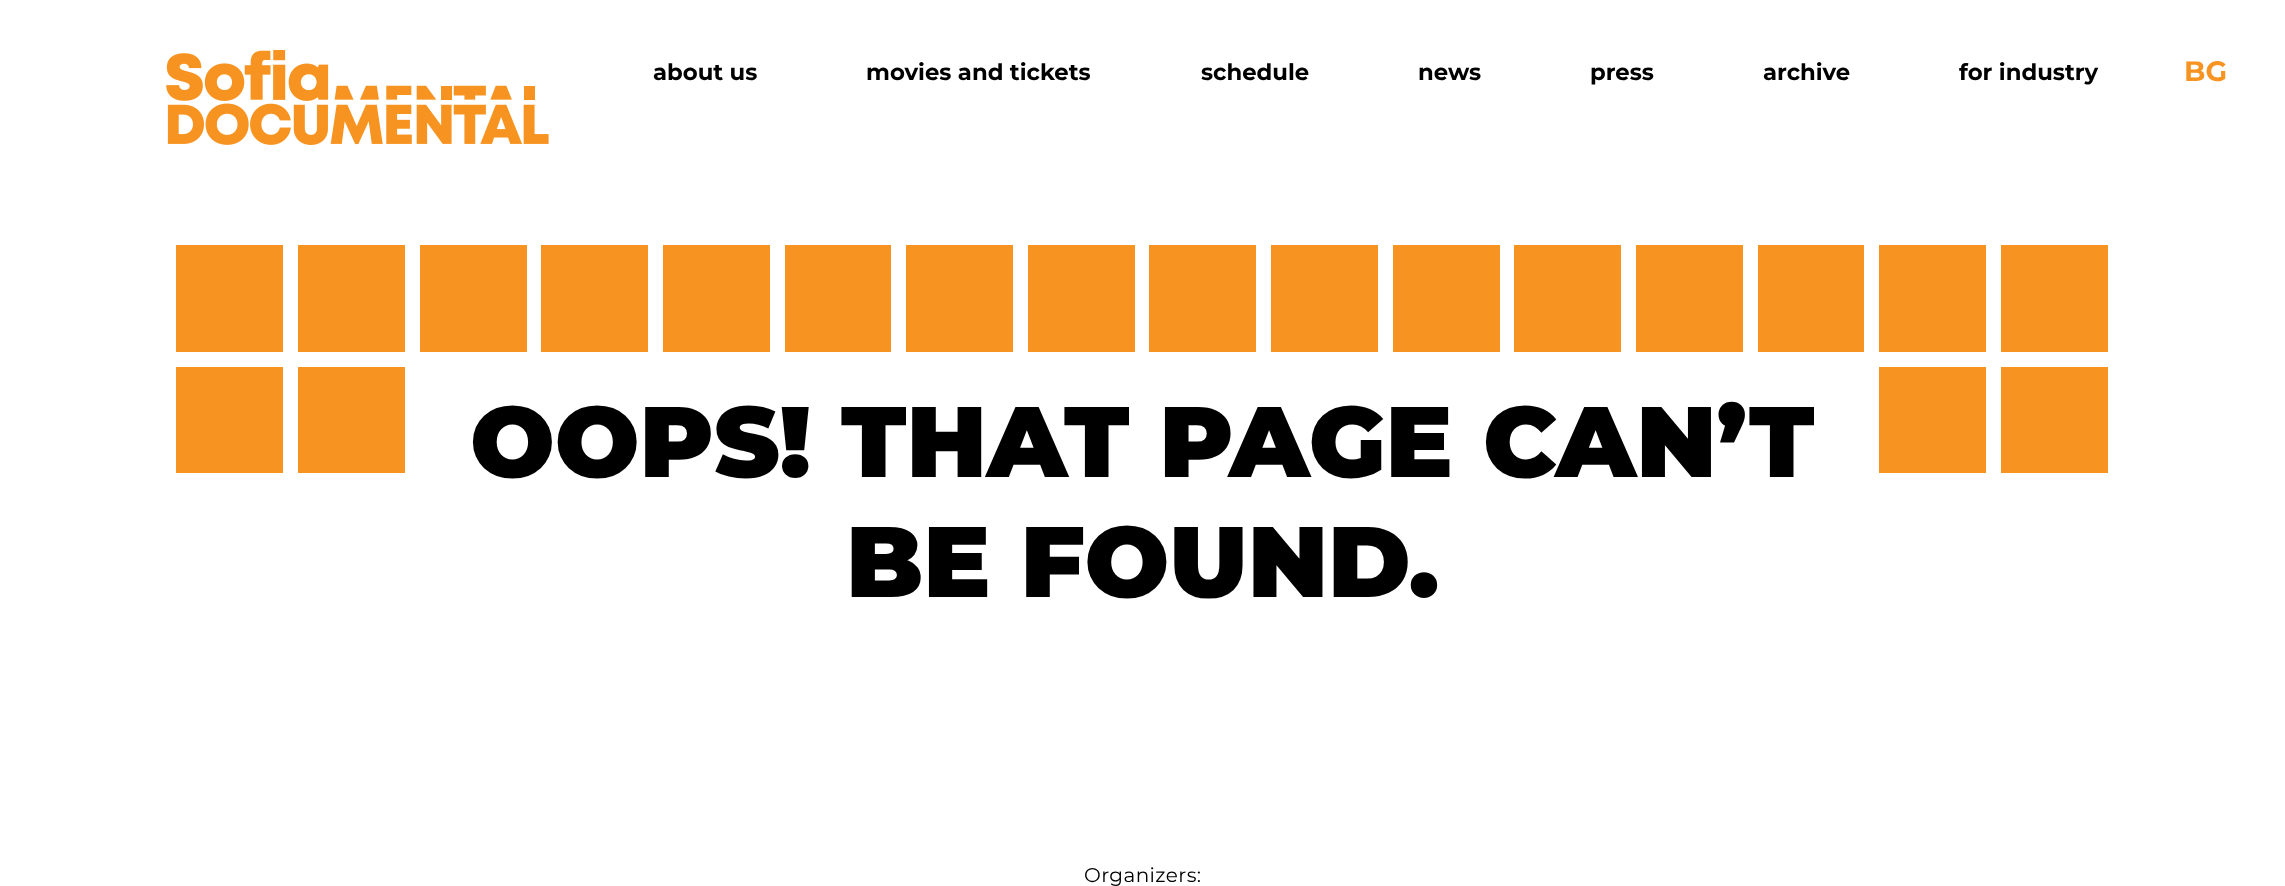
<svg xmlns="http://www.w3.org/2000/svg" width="2285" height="886">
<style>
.a{font:bold 22.75px Montserrat;fill:#000}
.b{font:bold 28px Montserrat;fill:#f79421}
.c{font:900 100px Montserrat;fill:#000}
.d{font:20px Montserrat;letter-spacing:0.4px;fill:#000}
</style>
<rect width="100%" height="100%" fill="#fff"/>
<image href="1.png" x="166" y="50" width="383" height="95"/>
<image href="2.png" x="176" y="245" width="1932" height="228"/>
<text class="a" x="653" y="80">about us</text>
<text class="a" x="866" y="80">movies and tickets</text>
<text class="a" x="1201" y="80">schedule</text>
<text class="a" x="1418" y="80">news</text>
<text class="a" x="1590" y="80">press</text>
<text class="a" x="1763" y="80">archive</text>
<text class="a" x="1959" y="80">for industry</text>
<text class="b" x="2184" y="81">BG</text>
<text class="c" x="470" y="477">OOPS! THAT PAGE CAN’T</text>
<text class="c" x="846" y="597">BE FOUND.</text>
<text class="d" x="1084" y="882">Organizers:</text>
</svg>
